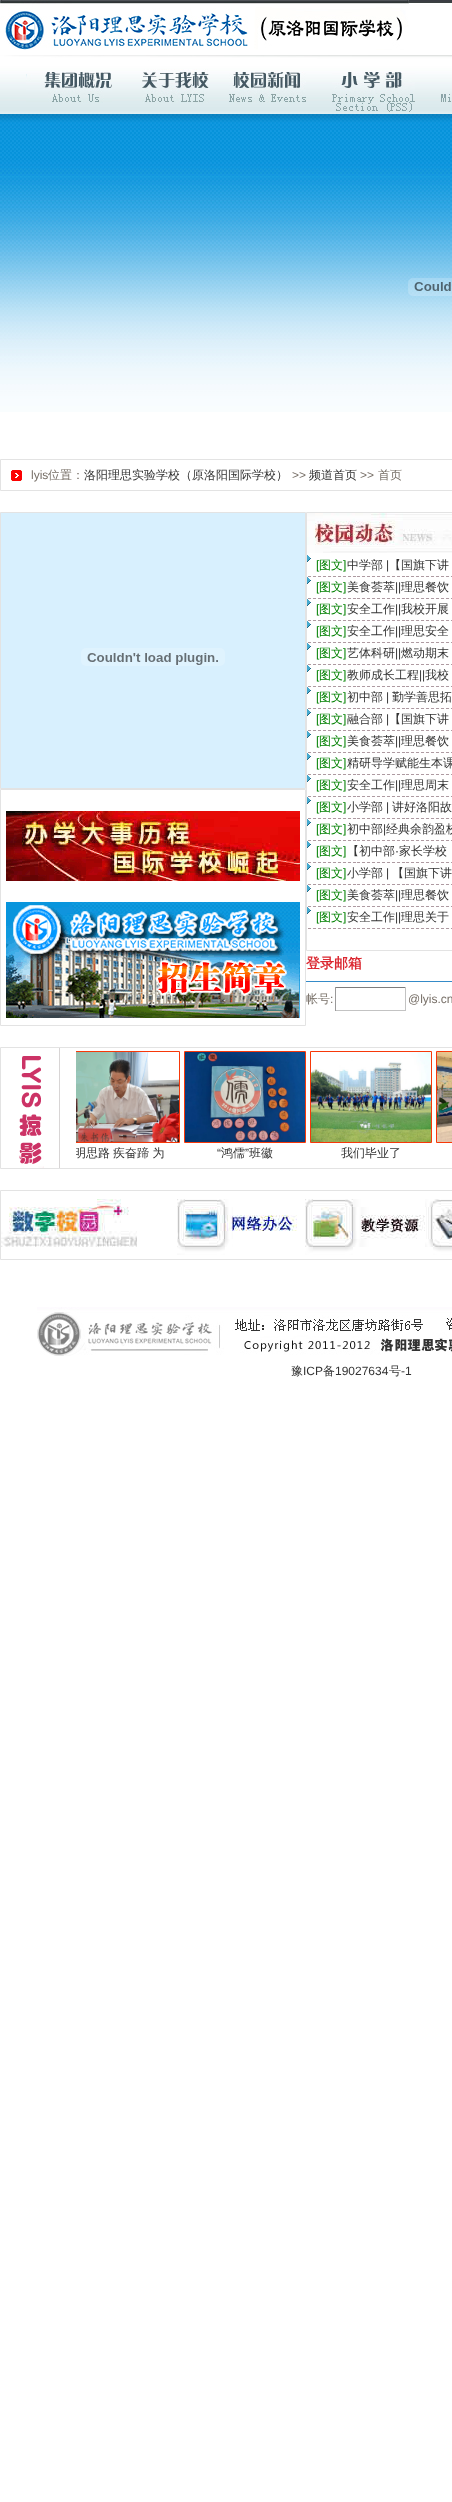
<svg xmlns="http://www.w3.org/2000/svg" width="452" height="2502">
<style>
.a{font:12px Liberation Sans;fill:#776f67}
.b{font:500 12px WenQuanYi Zen Hei;fill:#776f67}
.c{font:500 12px WenQuanYi Zen Hei;fill:#333}
.d{font:12px Liberation Sans;fill:#008000}
.e{font:500 12px WenQuanYi Zen Hei;fill:#008000}
.f{font:12px Liberation Sans;fill:#333}
.g{font:bold 14px WenQuanYi Zen Hei;fill:#db2730}
</style>
<defs>
<clipPath id="clip1"><path d="M76 1048h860v120H76z"/></clipPath>
</defs>
<rect width="100%" height="100%" fill="#fff"/>
<image href="1.png" x="0" y="0" width="452" height="412"/>
<image href="2.png" x="0" y="0" width="409" height="50"/>
<image href="3.png" x="0" y="55" width="452" height="59"/>
<image href="4.png" x="26" y="72" width="86" height="31"/>
<image href="5.png" x="142" y="69" width="67" height="34"/>
<image href="6.png" x="229" y="71" width="77" height="32"/>
<image href="7.png" x="332" y="72" width="83" height="40"/>
<image href="8.png" x="441" y="94" width="10" height="8"/>
<image href="9.png" x="408" y="278" width="44" height="18"/>
<path fill="none" stroke="#e3e3e3" d="M0.5 459.5h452v31H0.5z"/>
<image href="10.png" x="11" y="470" width="11" height="11"/>
<path fill="none" stroke="#e3e3e3" d="M0.5 789.5h305v236H0.5z"/>
<image href="11.png" x="6" y="811" width="294" height="70"/>
<image href="12.png" x="6" y="902" width="294" height="116"/>
<path fill="#d8f0fe" stroke="#e3e3e3" d="M0.5 512.5h305v276H0.5z"/>
<image href="13.png" x="81" y="648" width="144" height="18"/>
<path fill="none" stroke="#e3e3e3" d="M306.5 512.5h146v438H306.5z"/>
<image href="14.png" x="307" y="513" width="145" height="40"/>
<image href="15.png" x="307" y="555" width="4" height="7"/>
<image href="16.png" x="308" y="576" width="144" height="1"/>
<image href="15.png" x="307" y="577" width="4" height="7"/>
<image href="16.png" x="308" y="598" width="144" height="1"/>
<image href="15.png" x="307" y="599" width="4" height="7"/>
<image href="16.png" x="308" y="620" width="144" height="1"/>
<image href="15.png" x="307" y="621" width="4" height="7"/>
<image href="16.png" x="308" y="642" width="144" height="1"/>
<image href="15.png" x="307" y="643" width="4" height="7"/>
<image href="16.png" x="308" y="664" width="144" height="1"/>
<image href="15.png" x="307" y="665" width="4" height="7"/>
<image href="16.png" x="308" y="686" width="144" height="1"/>
<image href="15.png" x="307" y="687" width="4" height="7"/>
<image href="16.png" x="308" y="708" width="144" height="1"/>
<image href="15.png" x="307" y="709" width="4" height="7"/>
<image href="16.png" x="308" y="730" width="144" height="1"/>
<image href="15.png" x="307" y="731" width="4" height="7"/>
<image href="16.png" x="308" y="752" width="144" height="1"/>
<image href="15.png" x="307" y="753" width="4" height="7"/>
<image href="16.png" x="308" y="774" width="144" height="1"/>
<image href="15.png" x="307" y="775" width="4" height="7"/>
<image href="16.png" x="308" y="796" width="144" height="1"/>
<image href="15.png" x="307" y="797" width="4" height="7"/>
<image href="16.png" x="308" y="818" width="144" height="1"/>
<image href="15.png" x="307" y="819" width="4" height="7"/>
<image href="16.png" x="308" y="840" width="144" height="1"/>
<image href="15.png" x="307" y="841" width="4" height="7"/>
<image href="16.png" x="308" y="862" width="144" height="1"/>
<image href="15.png" x="307" y="863" width="4" height="7"/>
<image href="16.png" x="308" y="884" width="144" height="1"/>
<image href="15.png" x="307" y="885" width="4" height="7"/>
<image href="16.png" x="308" y="906" width="144" height="1"/>
<image href="15.png" x="307" y="907" width="4" height="7"/>
<image href="16.png" x="308" y="928" width="144" height="1"/>
<path fill="#358bc8" d="M306 981h146v1H306z"/>
<path fill="#7c7c7c" d="M335 987h71v1H335z"/>
<path fill="#c3c3c3" d="M405 987h1v24H405z"/>
<path fill="#c3c3c3" d="M335 1010h71v1H335z"/>
<path fill="#9a9a9a" d="M335 987h1v24H335z"/>
<image href="17.png" x="1" y="1048" width="451" height="120"/>
<path fill="none" stroke="#e3e3e3" d="M0.5 1047.5h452v121H0.5z"/>
<path fill="none" stroke="#f73809" d="M436.5 1051.5h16v91H436.5z"/>
<image href="18.png" x="437" y="1052" width="15" height="90"/>
<g clip-path="url(#clip1)">
<path fill="none" stroke="#f73809" d="M58.5 1051.5h121v91H58.5z"/>
</g>
<image href="19.png" x="76" y="1052" width="103" height="90"/>
<path fill="none" stroke="#f73809" d="M184.5 1051.5h121v91H184.5z"/>
<image href="20.png" x="185" y="1052" width="120" height="90"/>
<path fill="none" stroke="#f73809" d="M310.5 1051.5h121v91H310.5z"/>
<image href="21.png" x="311" y="1052" width="120" height="90"/>
<path fill="none" stroke="#e3e3e3" d="M0.5 1190.5h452v69H0.5z"/>
<image href="22.png" x="1" y="1199" width="451" height="56"/>
<image href="23.png" x="37" y="1307" width="415" height="49"/>
<text class="a" x="31" y="479">lyis</text>
<text class="b" x="48" y="479">位置：</text>
<text class="c" x="84" y="479">洛阳理思实验学校（原洛阳国际学校）</text>
<text class="a" x="292" y="479">&gt;&gt;</text>
<text class="c" x="309" y="479">频道首页</text>
<text class="a" x="360" y="479">&gt;&gt;</text>
<text class="b" x="378" y="479">首页</text>
<text class="d" x="316" y="569">[</text>
<text class="e" x="319" y="569">图文</text>
<text class="d" x="343" y="569">]</text>
<text class="c" x="347" y="569">中学部</text>
<text class="f" x="386" y="569">|</text>
<text class="c" x="389" y="569">【国旗下讲</text>
<text class="d" x="316" y="591">[</text>
<text class="e" x="319" y="591">图文</text>
<text class="d" x="343" y="591">]</text>
<text class="c" x="347" y="591">美食荟萃</text>
<text class="f" x="395" y="591">||</text>
<text class="c" x="401" y="591">理思餐饮</text>
<text class="d" x="316" y="613">[</text>
<text class="e" x="319" y="613">图文</text>
<text class="d" x="343" y="613">]</text>
<text class="c" x="347" y="613">安全工作</text>
<text class="f" x="395" y="613">||</text>
<text class="c" x="401" y="613">我校开展</text>
<text class="d" x="316" y="635">[</text>
<text class="e" x="319" y="635">图文</text>
<text class="d" x="343" y="635">]</text>
<text class="c" x="347" y="635">安全工作</text>
<text class="f" x="395" y="635">||</text>
<text class="c" x="401" y="635">理思安全</text>
<text class="d" x="316" y="657">[</text>
<text class="e" x="319" y="657">图文</text>
<text class="d" x="343" y="657">]</text>
<text class="c" x="347" y="657">艺体科研</text>
<text class="f" x="395" y="657">||</text>
<text class="c" x="401" y="657">燃动期末</text>
<text class="d" x="316" y="679">[</text>
<text class="e" x="319" y="679">图文</text>
<text class="d" x="343" y="679">]</text>
<text class="c" x="347" y="679">教师成长工程</text>
<text class="f" x="419" y="679">||</text>
<text class="c" x="425" y="679">我校</text>
<text class="d" x="316" y="701">[</text>
<text class="e" x="319" y="701">图文</text>
<text class="d" x="343" y="701">]</text>
<text class="c" x="347" y="701">初中部</text>
<text class="f" x="386" y="701">|</text>
<text class="c" x="392" y="701">勤学善思拓</text>
<text class="d" x="316" y="723">[</text>
<text class="e" x="319" y="723">图文</text>
<text class="d" x="343" y="723">]</text>
<text class="c" x="347" y="723">融合部</text>
<text class="f" x="386" y="723">|</text>
<text class="c" x="389" y="723">【国旗下讲</text>
<text class="d" x="316" y="745">[</text>
<text class="e" x="319" y="745">图文</text>
<text class="d" x="343" y="745">]</text>
<text class="c" x="347" y="745">美食荟萃</text>
<text class="f" x="395" y="745">||</text>
<text class="c" x="401" y="745">理思餐饮</text>
<text class="d" x="316" y="767">[</text>
<text class="e" x="319" y="767">图文</text>
<text class="d" x="343" y="767">]</text>
<text class="c" x="347" y="767">精研导学赋能生本课</text>
<text class="d" x="316" y="789">[</text>
<text class="e" x="319" y="789">图文</text>
<text class="d" x="343" y="789">]</text>
<text class="c" x="347" y="789">安全工作</text>
<text class="f" x="395" y="789">||</text>
<text class="c" x="401" y="789">理思周末</text>
<text class="d" x="316" y="811">[</text>
<text class="e" x="319" y="811">图文</text>
<text class="d" x="343" y="811">]</text>
<text class="c" x="347" y="811">小学部</text>
<text class="f" x="386" y="811">|</text>
<text class="c" x="392" y="811">讲好洛阳故</text>
<text class="d" x="316" y="833">[</text>
<text class="e" x="319" y="833">图文</text>
<text class="d" x="343" y="833">]</text>
<text class="c" x="347" y="833">初中部</text>
<text class="f" x="383" y="833">|</text>
<text class="c" x="386" y="833">经典余韵盈校</text>
<text class="d" x="316" y="855">[</text>
<text class="e" x="319" y="855">图文</text>
<text class="d" x="343" y="855">]</text>
<text class="c" x="347" y="855">【初中部</text>
<text class="f" x="395" y="855">·</text>
<text class="c" x="399" y="855">家长学校</text>
<text class="d" x="316" y="877">[</text>
<text class="e" x="319" y="877">图文</text>
<text class="d" x="343" y="877">]</text>
<text class="c" x="347" y="877">小学部</text>
<text class="f" x="386" y="877">|</text>
<text class="c" x="392" y="877">【国旗下讲</text>
<text class="d" x="316" y="899">[</text>
<text class="e" x="319" y="899">图文</text>
<text class="d" x="343" y="899">]</text>
<text class="c" x="347" y="899">美食荟萃</text>
<text class="f" x="395" y="899">||</text>
<text class="c" x="401" y="899">理思餐饮</text>
<text class="d" x="316" y="921">[</text>
<text class="e" x="319" y="921">图文</text>
<text class="d" x="343" y="921">]</text>
<text class="c" x="347" y="921">安全工作</text>
<text class="f" x="395" y="921">||</text>
<text class="c" x="401" y="921">理思关于</text>
<text class="g" x="306" y="968">登录邮箱</text>
<text class="b" x="306" y="1003">帐号</text>
<text class="a" x="330" y="1003">:</text>
<text class="a" x="408" y="1003">@lyis.cn</text>
<g clip-path="url(#clip1)">
<text class="c" x="74" y="1157">明思路</text>
</g>
<text class="c" x="113" y="1157">疾奋蹄 为</text>
<text class="f" x="217" y="1157">“</text>
<text class="c" x="221" y="1157">鸿儒</text>
<text class="f" x="245" y="1157">”</text>
<text class="c" x="249" y="1157">班徽</text>
<text class="c" x="341" y="1157">我们毕业了</text>
<text class="c" x="291" y="1375">豫</text>
<text class="f" x="303" y="1375">ICP</text>
<text class="c" x="323" y="1375">备</text>
<text class="f" x="335" y="1375">19027634</text>
<text class="c" x="389" y="1375">号</text>
<text class="f" x="401" y="1375">-1</text>
</svg>
